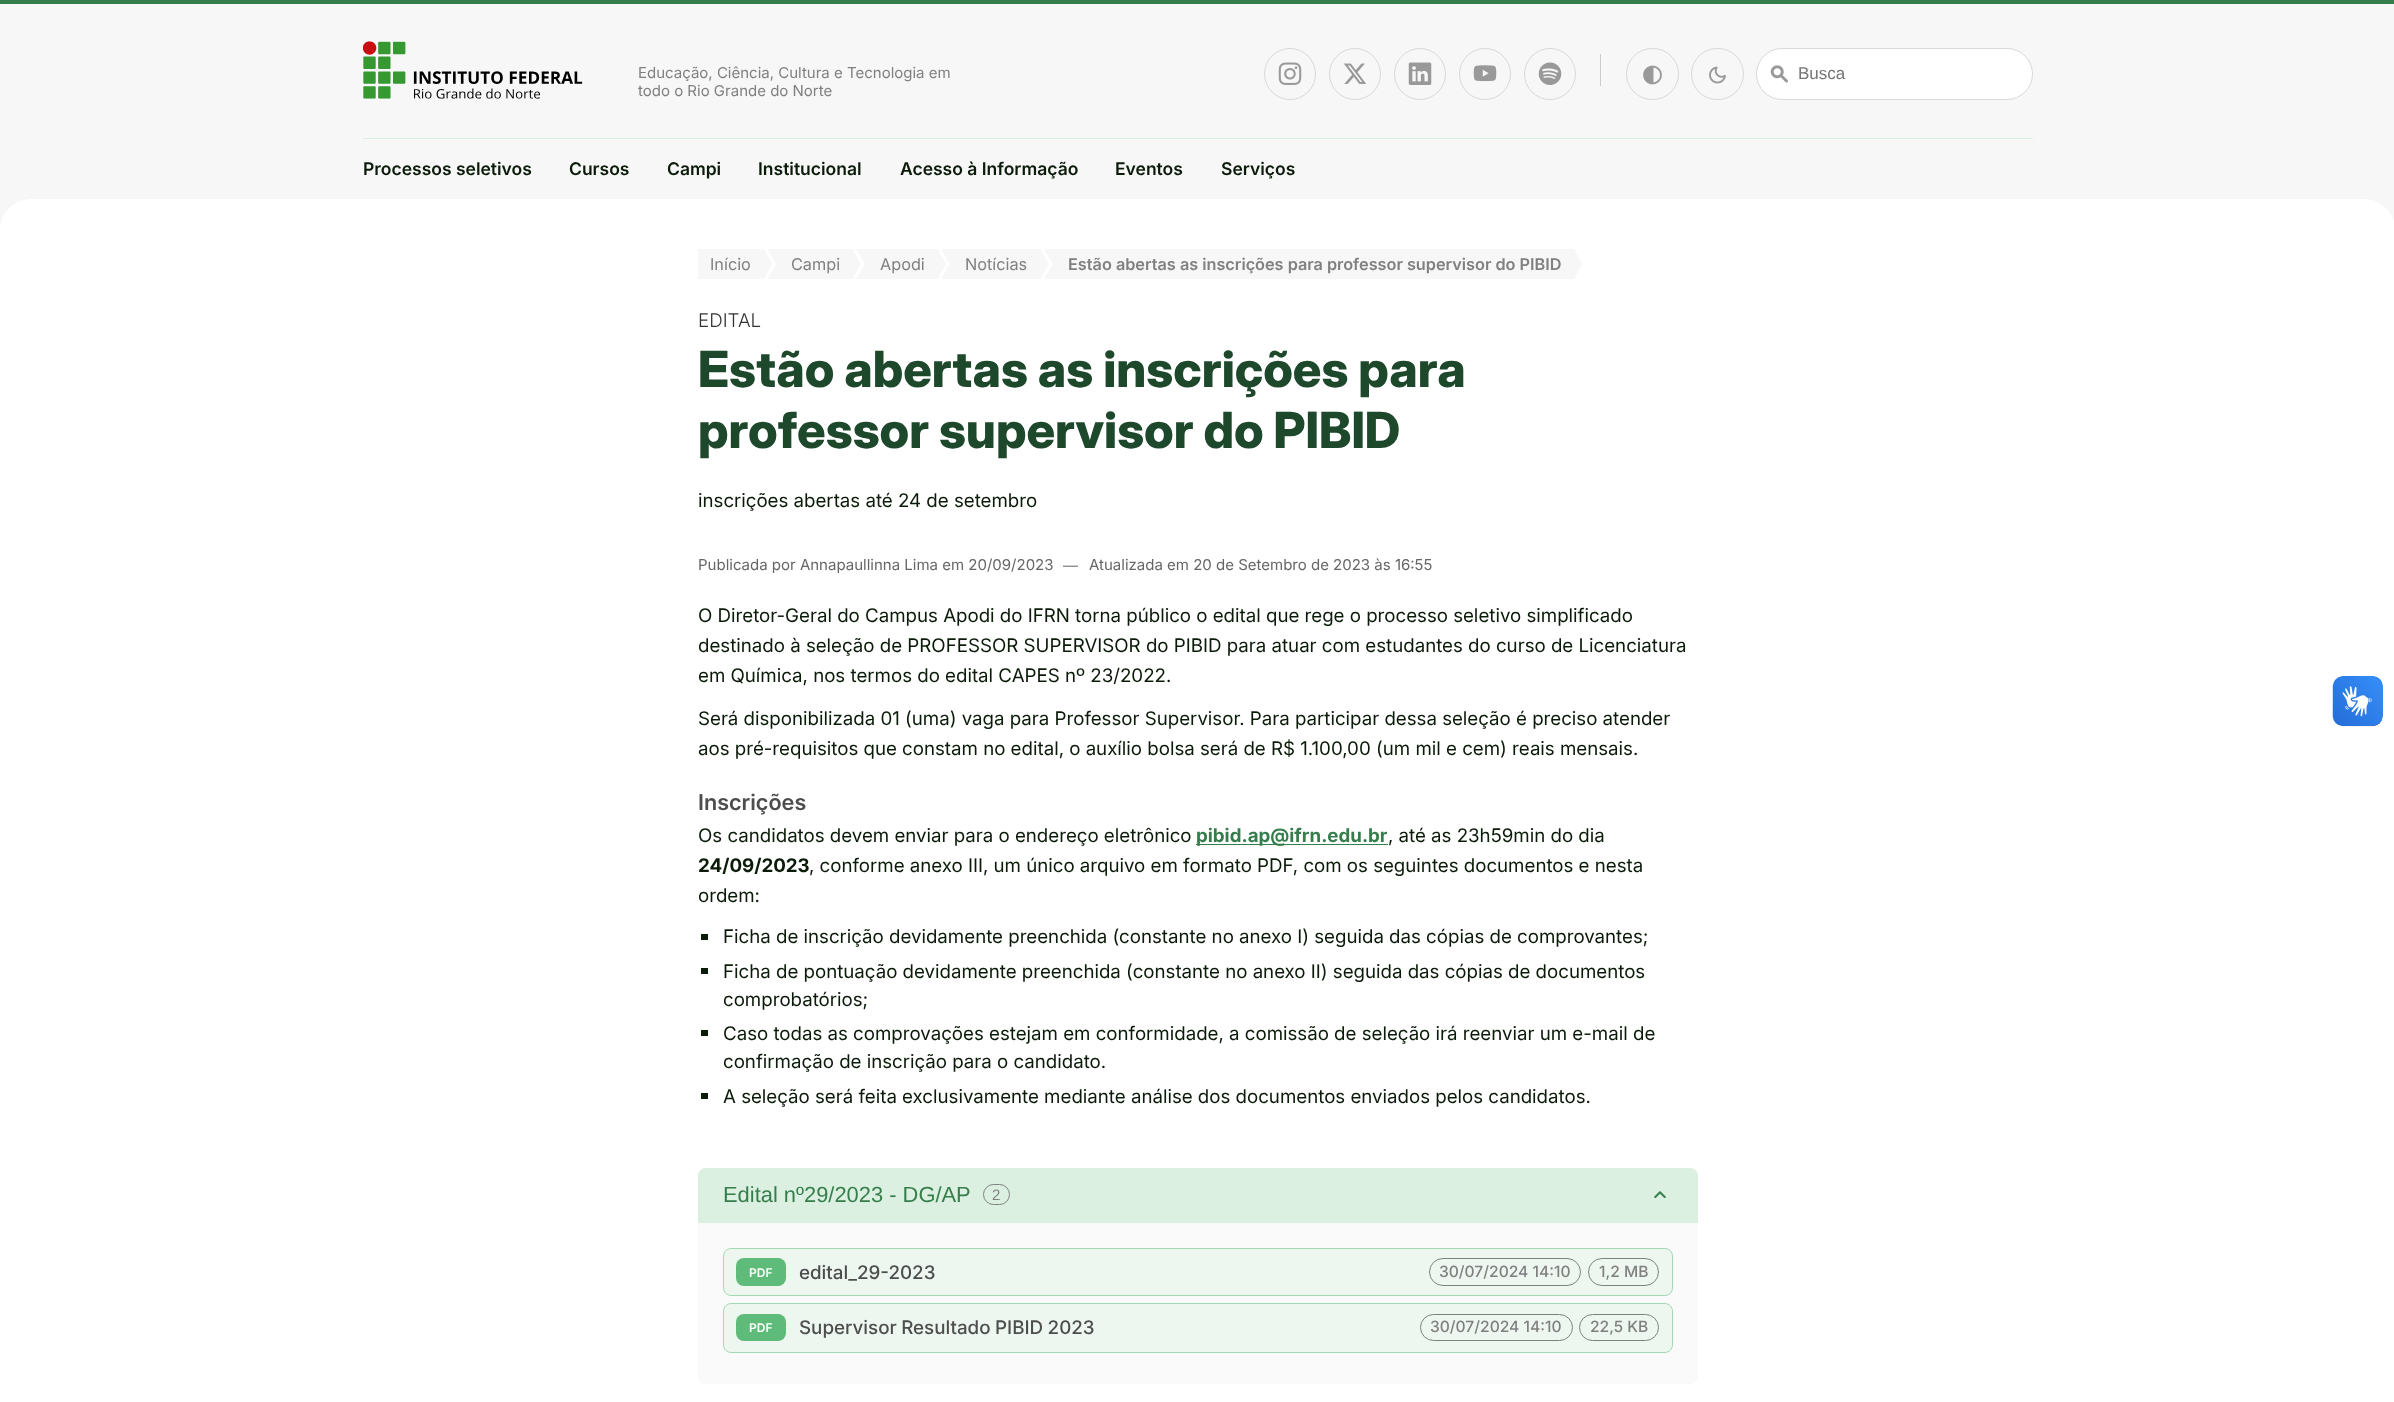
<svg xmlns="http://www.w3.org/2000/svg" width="2394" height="1402">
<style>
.a{font:15px Inter;fill:#808080}
.b{font:17px Liberation Sans;fill:#757575}
.c{font:600 17.5px Inter;fill:#0b1b09}
.d{font:16.25px Inter;fill:#808080}
.e{font:600 16.25px Inter;fill:#808080}
.f{font:300 18.75px Inter;fill:#333}
.g{font:800 50px Inter;fill:#1e482b}
.h{font:18.75px 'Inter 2';fill:#0b1b09}
.i{font:15px Inter;fill:#666}
.j{font:15px Liberation Sans;fill:#666}
.k{font:600 21.9px 'Inter 2';fill:#4d4d4d}
.l{font:bold 18.75px Inter;fill:#357e4b}
.m{font:bold 18.75px Inter;fill:#0b1b09}
.n{font:21.9px Liberation Sans;fill:#357e4b}
.o{font:15px Liberation Sans;fill:#808080}
.p{font:600 12px Inter;fill:#fff}
.q{font:500 18.75px Inter;fill:#4d4d4d}
.r{font:500 15.6px Inter;fill:#808080}
</style>
<rect width="100%" height="100%" fill="#f7f7f7"/>
<path fill="#357e4b" d="M0 0h2394v4H0z"/>
<image href="1.png" x="363" y="41" width="220" height="58"/>
<circle fill="none" stroke="#d9d9d9" cx="1290" cy="74" r="25.5"/>
<image href="2.png" x="1278" y="62" width="24" height="23"/>
<circle fill="none" stroke="#d9d9d9" cx="1355" cy="74" r="25.5"/>
<image href="3.png" x="1343" y="63" width="23" height="21"/>
<circle fill="none" stroke="#d9d9d9" cx="1420" cy="74" r="25.5"/>
<image href="4.png" x="1408" y="62" width="24" height="23"/>
<circle fill="none" stroke="#d9d9d9" cx="1485" cy="74" r="25.5"/>
<image href="5.png" x="1473" y="65" width="24" height="17"/>
<circle fill="none" stroke="#d9d9d9" cx="1550" cy="74" r="25.5"/>
<image href="6.png" x="1538" y="62" width="24" height="23"/>
<path fill="#ccc" d="M1600 54h1v32H1600z"/>
<rect fill="none" stroke="#d9d9d9" x="1626.5" y="48.5" width="52" height="51" rx="25.5"/>
<image href="7.png" x="1643" y="65" width="19" height="20"/>
<rect fill="none" stroke="#d9d9d9" x="1691.5" y="48.5" width="52" height="51" rx="25.5"/>
<image href="8.png" x="1709" y="66" width="17" height="18"/>
<rect fill="#fff" stroke="#d9d9d9" x="1756.5" y="48.5" width="276" height="51" rx="25.5"/>
<image href="9.png" x="1770" y="65" width="18" height="18"/>
<path fill="#dbf0e1" d="M363 138h1670v1H363z"/>
<path fill="#fff" d="M31 199h2333c17 0 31 14 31 31v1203h-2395v-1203c0-17 14-31 31-31z"/>
<path fill="#f7f7f7" d="M698 249h66v30H698z"/>
<path fill="#f7f7f7" d="M764 279v-30l8.5 15z"/>
<path fill="#f7f7f7" d="M785 249h68v30H785z"/>
<path fill="#f7f7f7" d="M767.5 249h17.5l-9 15z"/>
<path fill="#f7f7f7" d="M776 250h9v29H776z"/>
<path fill="#f7f7f7" d="M785 279h-17.5l8.5-15z"/>
<path fill="#f7f7f7" d="M852.5 279v-30l8.5 15z"/>
<path fill="#f7f7f7" d="M874 249h64v30H874z"/>
<path fill="#f7f7f7" d="M856 249h18l-9 15z"/>
<path fill="#f7f7f7" d="M865 250h9v29H865z"/>
<path fill="#f7f7f7" d="M874 279h-18l9-15z"/>
<path fill="#f7f7f7" d="M937.5 279v-30l8.5 15z"/>
<path fill="#f7f7f7" d="M959 249h81v30H959z"/>
<path fill="#f7f7f7" d="M941 249h18l-9 15z"/>
<path fill="#f7f7f7" d="M950 250h9v29H950z"/>
<path fill="#f7f7f7" d="M959 279h-18l9-15z"/>
<path fill="#f7f7f7" d="M1040 279v-30l9 15z"/>
<path fill="#f7f7f7" d="M1061 249h513v30H1061z"/>
<path fill="#f7f7f7" d="M1044 249h17l-8.5 15z"/>
<path fill="#f7f7f7" d="M1053 249h8v30H1053z"/>
<path fill="#f7f7f7" d="M1061 279h-17l8.5-15z"/>
<path fill="#f7f7f7" d="M1574 279v-30l8.5 15z"/>
<path fill="#357e4b" d="M1196 844h192v1H1196z"/>
<path fill="#0b1b09" d="M701 934h7v6H701z"/>
<path fill="#0b1b09" d="M701 968h7v6H701z"/>
<path fill="#0b1b09" d="M701 1030h7v6H701z"/>
<path fill="#0b1b09" d="M701 1093h7v6H701z"/>
<path fill="#dbf0e1" d="M706 1168h984c4.5 0 8 3.5 8 8v47h-1000v-47c0-4.5 3.5-8 8-8z"/>
<rect fill="none" stroke="#808080" x="983.5" y="1184.5" width="26" height="20" rx="10"/>
<image href="10.png" x="1654" y="1191" width="12" height="8"/>
<path fill="#fafafa" d="M698 1223h1000v153c0 4.5-3.5 8-8 8h-984c-4.5 0-8-3.5-8-8z"/>
<rect fill="#edf7f0" stroke="#a5d9b5" x="723.5" y="1248.5" width="949" height="47" rx="7.5"/>
<rect fill="#5ebb7a" x="736" y="1258" width="50" height="28" rx="8"/>
<rect fill="none" stroke="#808080" x="1429.5" y="1258.5" width="151" height="27" rx="13.5"/>
<rect fill="none" stroke="#808080" x="1588.5" y="1258.5" width="70" height="27" rx="13.5"/>
<rect fill="#edf7f0" stroke="#a5d9b5" x="723.5" y="1303.5" width="949" height="49" rx="7.5"/>
<rect fill="#5ebb7a" x="736" y="1314" width="50" height="27" rx="8"/>
<rect fill="none" stroke="#808080" x="1420.5" y="1314.5" width="152" height="26" rx="13"/>
<rect fill="none" stroke="#808080" x="1579.5" y="1314.5" width="79" height="26" rx="13"/>
<image href="11.png" x="2332" y="676" width="51" height="51"/>
<image href="12.png" x="2333" y="676" width="50" height="50"/>
<text class="a" x="638" y="78">Educação, Ciência, Cultura e Tecnologia em</text>
<text class="a" x="638" y="96">todo o Rio Grande do Norte</text>
<text class="b" x="1798" y="79">Busca</text>
<text class="c" x="363" y="175">Processos seletivos</text>
<text class="c" x="569" y="175">Cursos</text>
<text class="c" x="667" y="175">Campi</text>
<text class="c" x="758" y="175">Institucional</text>
<text class="c" x="900" y="175">Acesso à Informação</text>
<text class="c" x="1115" y="175">Eventos</text>
<text class="c" x="1221" y="175">Serviços</text>
<text class="d" x="710" y="270">Início</text>
<text class="d" x="791" y="270">Campi</text>
<text class="d" x="880" y="270">Apodi</text>
<text class="d" x="965" y="270">Notícias</text>
<text class="e" x="1068" y="270">Estão abertas as inscrições para professor supervisor do PIBID</text>
<text class="f" x="698" y="327">EDITAL</text>
<text class="g" x="698" y="387">Estão abertas as inscrições para</text>
<text class="g" x="698" y="448">professor supervisor do PIBID</text>
<text class="h" x="698" y="507">inscrições abertas até 24 de setembro</text>
<text class="i" x="698" y="570">Publicada por Annapaullinna Lima em 20/09/2023</text>
<text class="j" x="1063" y="570">―</text>
<text class="i" x="1089" y="570">Atualizada em 20 de Setembro de 2023 às 16:55</text>
<text class="h" x="698" y="622">O Diretor-Geral do Campus Apodi do IFRN torna público o edital que rege o processo seletivo simplificado</text>
<text class="h" x="698" y="652">destinado à seleção de PROFESSOR SUPERVISOR do PIBID para atuar com estudantes do curso de Licenciatura</text>
<text class="h" x="698" y="682">em Química, nos termos do edital CAPES nº 23/2022.</text>
<text class="h" x="698" y="725">Será disponibilizada 01 (uma) vaga para Professor Supervisor. Para participar dessa seleção é preciso atender</text>
<text class="h" x="698" y="755">aos pré-requisitos que constam no edital, o auxílio bolsa será de R$ 1.100,00 (um mil e cem) reais mensais.</text>
<text class="k" x="698" y="810">Inscrições</text>
<text class="h" x="698" y="842">Os candidatos devem enviar para o endereço eletrônico</text>
<text class="l" x="1196" y="842">pibid.ap@ifrn.edu.br</text>
<text class="h" x="1388" y="842">, até as 23h59min do dia</text>
<text class="m" x="698" y="872">24/09/2023</text>
<text class="h" x="809" y="872">, conforme anexo III, um único arquivo em formato PDF, com os seguintes documentos e nesta</text>
<text class="h" x="698" y="902">ordem:</text>
<text class="h" x="723" y="943">Ficha de inscrição devidamente preenchida (constante no anexo I) seguida das cópias de comprovantes;</text>
<text class="h" x="723" y="978">Ficha de pontuação devidamente preenchida (constante no anexo II) seguida das cópias de documentos</text>
<text class="h" x="723" y="1006">comprobatórios;</text>
<text class="h" x="723" y="1040">Caso todas as comprovações estejam em conformidade, a comissão de seleção irá reenviar um e-mail de</text>
<text class="h" x="723" y="1068">confirmação de inscrição para o candidato.</text>
<text class="h" x="723" y="1103">A seleção será feita exclusivamente mediante análise dos documentos enviados pelos candidatos.</text>
<text class="n" x="723" y="1202">Edital nº29/2023 - DG/AP</text>
<text class="o" x="992" y="1200">2</text>
<text class="p" x="749" y="1277">PDF</text>
<text class="q" x="799" y="1279">edital_29-2023</text>
<text class="r" x="1439" y="1277">30/07/2024 14:10</text>
<text class="r" x="1599" y="1277">1,2 MB</text>
<text class="p" x="749" y="1332">PDF</text>
<text class="q" x="799" y="1334" word-spacing="-0.5">Supervisor Resultado PIBID 2023</text>
<text class="r" x="1430" y="1332">30/07/2024 14:10</text>
<text class="r" x="1590" y="1332">22,5 KB</text>
</svg>
